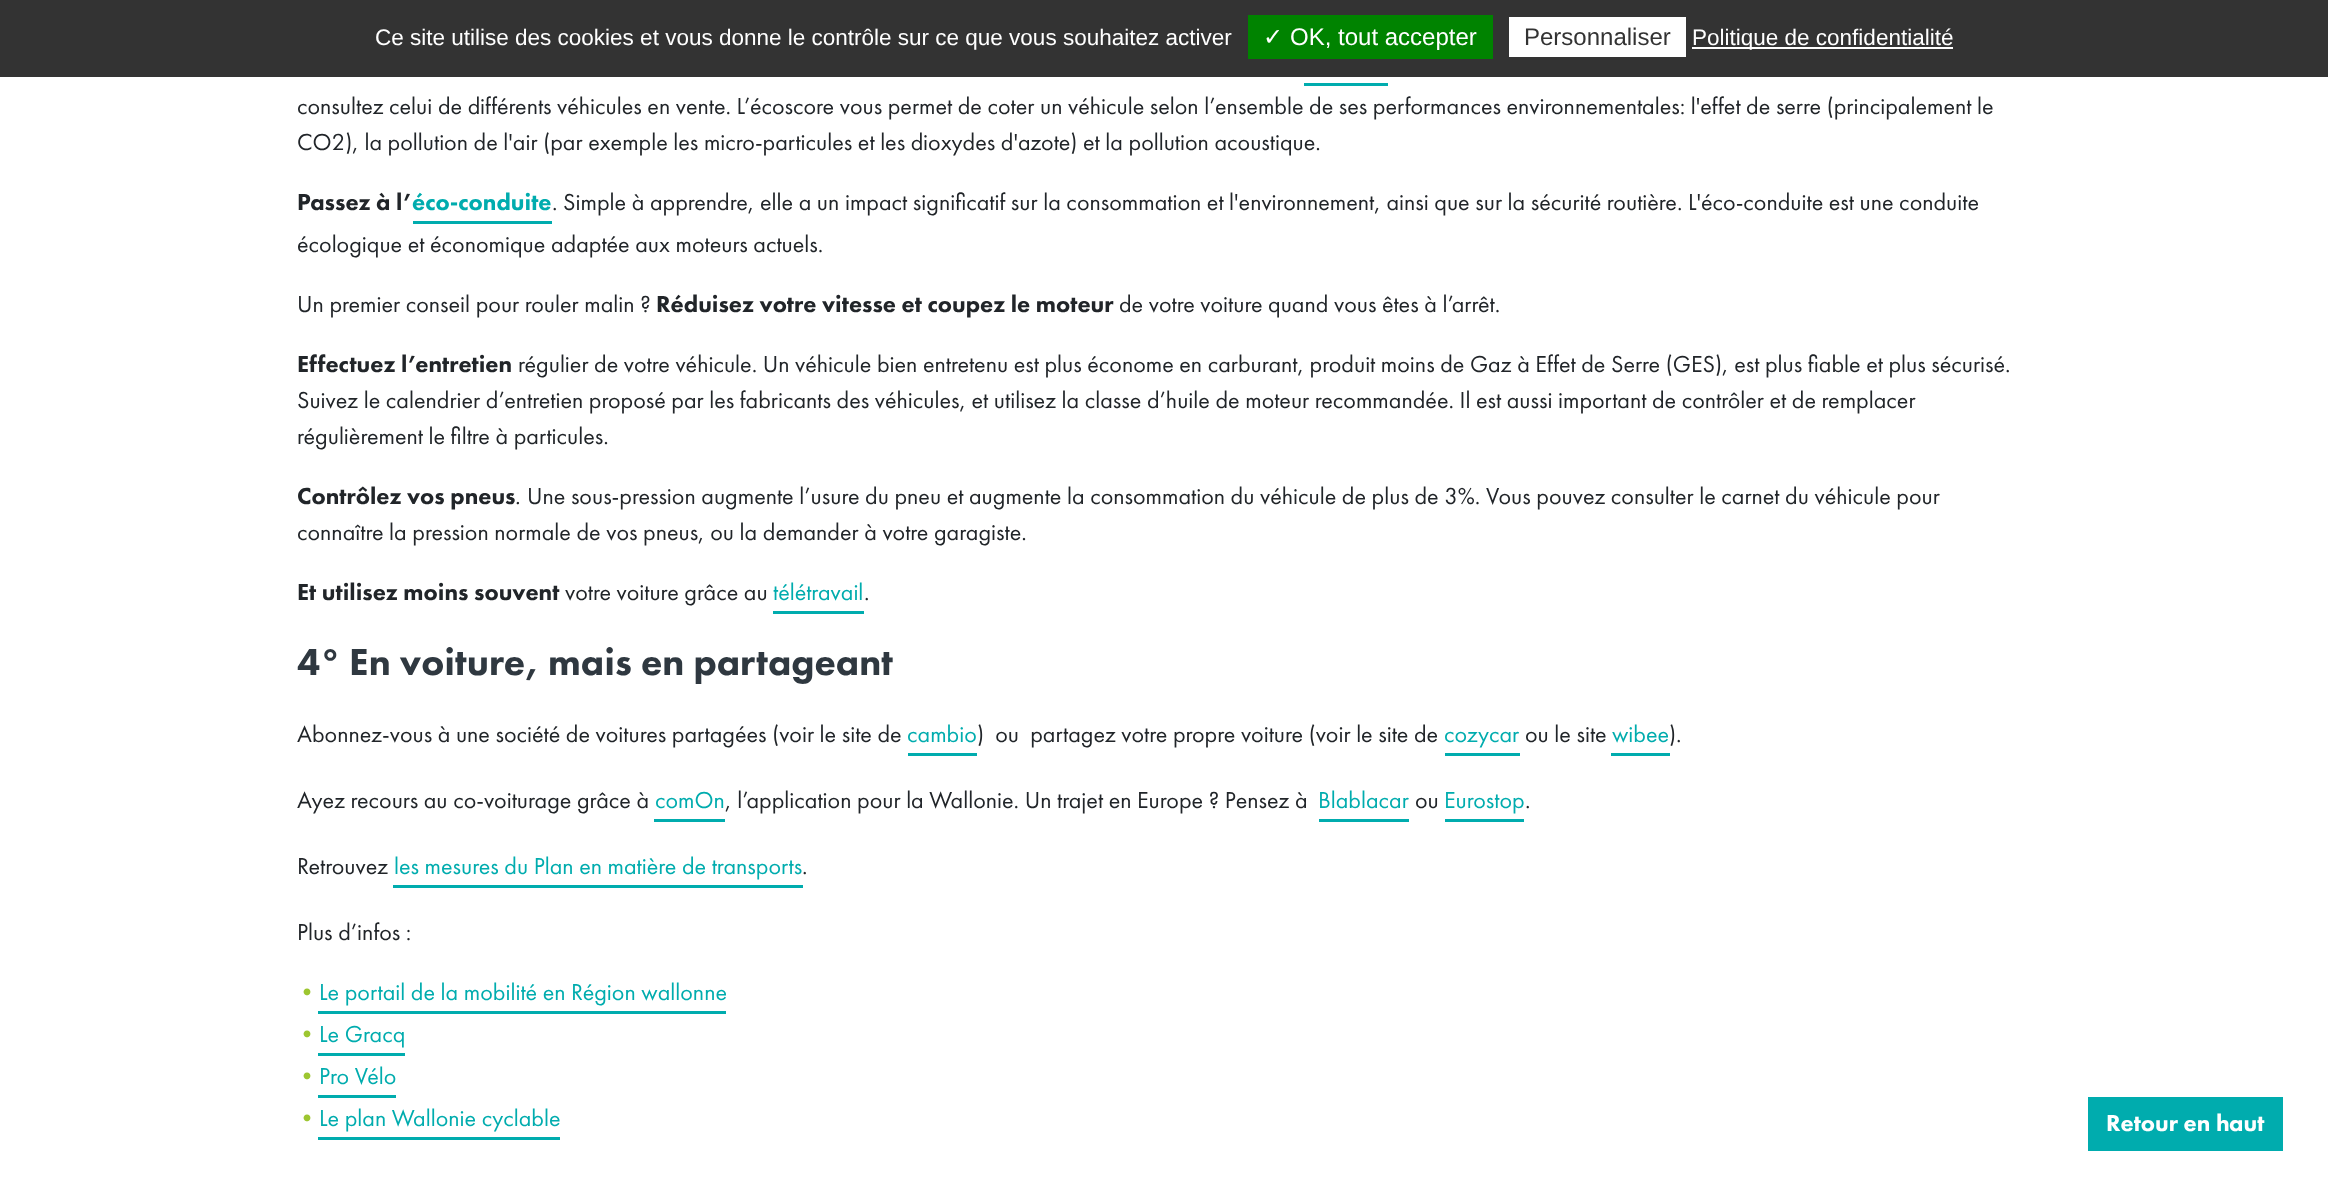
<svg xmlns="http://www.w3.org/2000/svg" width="2328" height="1180">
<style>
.a{font:22.5px Liberation Sans;fill:#fff}
.b{font:24px DejaVu Sans;fill:#fff}
.c{font:24px Liberation Sans;fill:#fff}
.d{font:24px Liberation Sans;fill:#333}
.e{font:24px Futura PT;fill:#212529}
.f{font:900 24px Futura PT;fill:#212529}
.g{font:900 24px Futura PT;fill:#00acae}
.h{font:italic 24px Futura PT;fill:#212529}
.i{font:24px Futura PT;fill:#00acae}
.j{font:900 39px Futura PT;fill:#2f3840}
.k{font:900 24px Futura PT;fill:#9dc630}
.l{font:900 24px Futura PT;fill:#fff}
</style>
<rect width="100%" height="100%" fill="#fff"/>
<path fill="#333" d="M0 0h2328v77H0z"/>
<path fill="#008300" d="M1248 15h245v44H1248z"/>
<path fill="#fff" d="M1509 17h177v40H1509z"/>
<path fill="#fff" d="M1692 47h261v2H1692z"/>
<path fill="#00acae" d="M1304 83h84v3H1304z"/>
<path fill="#00acae" d="M413 221h139v3H413z"/>
<path fill="#00acae" d="M773 611h91v3H773z"/>
<path fill="#00acae" d="M908 753h69v3H908z"/>
<path fill="#00acae" d="M1445 753h75v3H1445z"/>
<path fill="#00acae" d="M1611 753h59v3H1611z"/>
<path fill="#00acae" d="M654 819h71v3H654z"/>
<path fill="#00acae" d="M1319 819h90v3H1319z"/>
<path fill="#00acae" d="M1445 819h79v3H1445z"/>
<path fill="#00acae" d="M393 885h410v3H393z"/>
<path fill="#00acae" d="M318 1011h408v3H318z"/>
<path fill="#00acae" d="M318 1053h87v3H318z"/>
<path fill="#00acae" d="M318 1095h78v3H318z"/>
<path fill="#00acae" d="M318 1137h242v3H318z"/>
<path fill="#00acae" d="M2088 1097h195v54H2088z"/>
<text class="a" x="375" y="45">Ce site utilise des cookies et vous donne le contrôle sur ce que vous souhaitez activer</text>
<text class="b" x="1263" y="45">✓</text>
<text class="c" x="1290" y="45">OK, tout accepter</text>
<text class="d" x="1524" y="45">Personnaliser</text>
<text class="a" x="1692" y="45">Politique de confidentialité</text>
<text class="e" x="297" y="114">consultez celui de différents véhicules en vente. L’écoscore vous permet de coter un véhicule selon l’ensemble de ses performances environnementales: l'effet de serre (principalement le</text>
<text class="e" x="297" y="150">CO2), la pollution de l'air (par exemple les micro-particules et les dioxydes d'azote) et la pollution acoustique.</text>
<text class="f" x="297" y="210">Passez à l’</text>
<text class="g" x="412" y="210">éco-conduite</text>
<text class="e" x="552" y="210">. Simple à apprendre, elle a un impact significatif sur la consommation et l'environnement, ainsi que sur la sécurité routière. L'éco-conduite est une conduite</text>
<text class="e" x="297" y="252">écologique et économique adaptée aux moteurs actuels.</text>
<text class="e" x="297" y="312">Un premier conseil pour rouler malin ?</text>
<text class="f" x="656" y="312">Réduisez votre vitesse et coupez le moteur</text>
<text class="e" x="1119" y="312">de votre voiture quand vous êtes à l’arrêt.</text>
<text class="f" x="297" y="372">Effectuez l’entretien</text>
<text class="e" x="518" y="372">régulier de votre véhicule. Un véhicule bien entretenu est plus économe en carburant, produit moins de Gaz à Effet de Serre (GES), est plus fiable et plus sécurisé.</text>
<text class="e" x="297" y="408">Suivez le calendrier d’entretien proposé par les fabricants des véhicules, et utilisez la classe d’huile de moteur recommandée. Il est aussi important de contrôler et de remplacer</text>
<text class="e" x="297" y="444">régulièrement le filtre à particules.</text>
<text class="f" x="297" y="504">Contrôlez vos pneus</text>
<text class="h" x="515" y="504">.</text>
<text class="e" x="527" y="504">Une sous-pression augmente l’usure du pneu et augmente la consommation du véhicule de plus de 3%. Vous pouvez consulter le carnet du véhicule pour</text>
<text class="e" x="297" y="540">connaître la pression normale de vos pneus, ou la demander à votre garagiste.</text>
<text class="f" x="297" y="600">Et utilisez moins souvent</text>
<text class="e" x="565" y="600">votre voiture grâce au</text>
<text class="i" x="773" y="600">télétravail</text>
<text class="e" x="864" y="600">.</text>
<text class="j" x="297" y="675">4° En voiture, mais en partageant</text>
<text class="e" x="297" y="742">Abonnez-vous à une société de voitures partagées (voir le site de</text>
<text class="i" x="907" y="742">cambio</text>
<text class="e" xml:space="preserve" x="977" y="742">)  ou  partagez votre propre voiture (voir le site de</text>
<text class="i" x="1444" y="742">cozycar</text>
<text class="e" x="1525" y="742">ou le site</text>
<text class="i" x="1612" y="742">wibee</text>
<text class="e" x="1669" y="742">).</text>
<text class="e" x="297" y="808">Ayez recours au co-voiturage grâce à</text>
<text class="i" x="655" y="808">comOn</text>
<text class="e" x="725" y="808">, l’application pour la Wallonie. Un trajet en Europe ? Pensez à</text>
<text class="i" x="1318" y="808">Blablacar</text>
<text class="e" x="1415" y="808">ou</text>
<text class="i" x="1444" y="808">Eurostop</text>
<text class="e" x="1525" y="808">.</text>
<text class="e" x="297" y="874">Retrouvez</text>
<text class="i" x="394" y="874">les mesures du Plan en matière de transports</text>
<text class="e" x="802" y="874">.</text>
<text class="e" x="297" y="940">Plus d’infos :</text>
<text class="k" x="295" y="1000">•</text>
<text class="i" x="319" y="1000">Le portail de la mobilité en Région wallonne</text>
<text class="k" x="295" y="1042">•</text>
<text class="i" x="319" y="1042">Le Gracq</text>
<text class="k" x="295" y="1084">•</text>
<text class="i" x="319" y="1084">Pro Vélo</text>
<text class="k" x="295" y="1126">•</text>
<text class="i" x="319" y="1126">Le plan Wallonie cyclable</text>
<text class="l" x="2106" y="1131">Retour en haut</text>
</svg>
